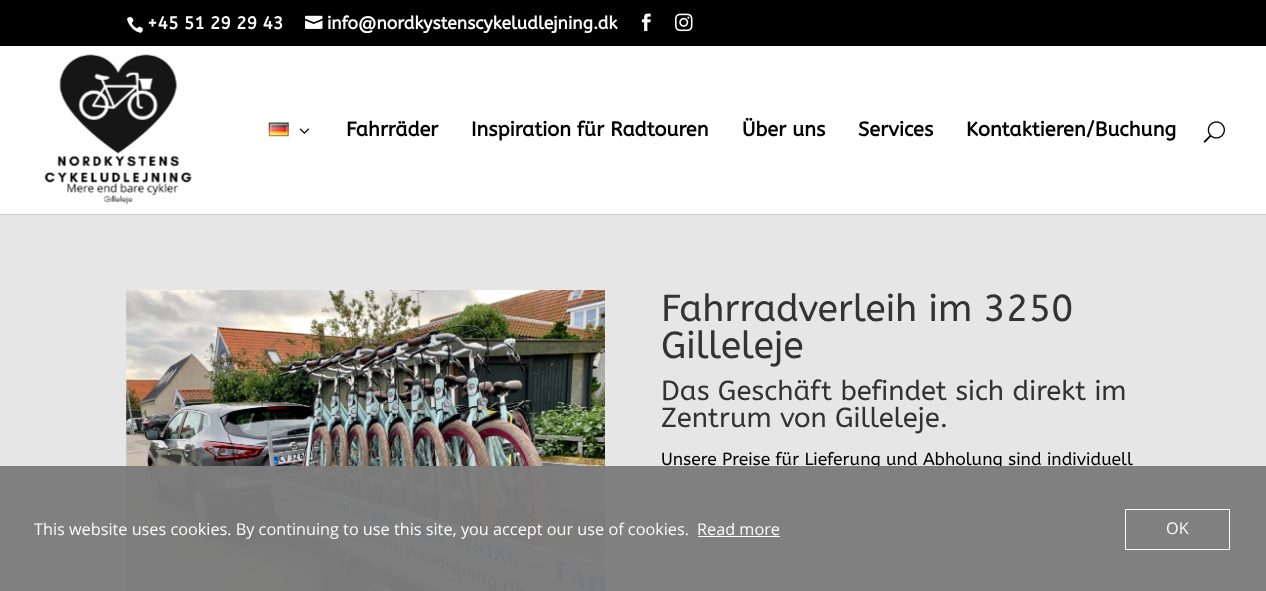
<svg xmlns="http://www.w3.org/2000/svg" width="1266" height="591">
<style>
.a{font:bold 17.5px ABeeZee;fill:#fbfbfb}
.b{font:bold 20px ABeeZee;fill:#000}
.c{font:37.5px ABeeZee;fill:#333}
.d{font:27.5px ABeeZee;fill:#333}
.e{font:17.5px ABeeZee;fill:#000}
.f{font:16.25px Open Sans;fill:#fbfbfb}
</style>
<rect width="100%" height="100%" fill="#fff"/>
<path fill="#000" d="M0 0h1266v46H0z"/>
<image href="1.png" x="127" y="16" width="16" height="17"/>
<image href="2.png" x="305" y="15" width="18" height="14"/>
<image href="3.png" x="641" y="13" width="10" height="19"/>
<image href="4.png" x="675" y="13" width="18" height="19"/>
<path fill="#cfcfcf" d="M0 214h1266v1H0z"/>
<image href="5.png" x="44" y="54" width="148" height="150"/>
<image href="6.png" x="268" y="122" width="21" height="15"/>
<image href="7.png" x="299" y="128" width="10" height="6"/>
<image href="8.png" x="1203" y="121" width="22" height="22"/>
<path fill="#e6e6e6" d="M0 215h1266v376H0z"/>
<image href="9.png" x="126" y="290" width="479" height="301"/>
<text class="a" x="147" y="29">+45 51 29 29 43</text>
<text class="a" x="327" y="29">info@nordkystenscykeludlejning.dk</text>
<text class="b" x="346" y="136">Fahrräder</text>
<text class="b" x="471" y="136">Inspiration für Radtouren</text>
<text class="b" x="742" y="136">Über uns</text>
<text class="b" x="858" y="136">Services</text>
<text class="b" x="966" y="136">Kontaktieren/Buchung</text>
<text class="c" x="661" y="321">Fahrradverleih im 3250</text>
<text class="c" x="661" y="358">Gilleleje</text>
<text class="d" x="661" y="400">Das Geschäft befindet sich direkt im</text>
<text class="d" x="661" y="427">Zentrum von Gilleleje.</text>
<text class="e" x="661" y="465">Unsere Preise für Lieferung und Abholung sind individuell</text>
<path fill="#7c7c7cf7" d="M0 466h1266v125H0z"/>
<text class="f" x="34" y="535">This website uses cookies. By continuing to use this site, you accept our use of cookies.</text>
<text class="f" x="697" y="535">Read more</text>
<path fill="#fefefe" d="M698 536h82v1H698z"/>
<path fill="none" stroke="#fffffff7" d="M1125.5 509.5h104v40H1125.5z"/>
<text class="f" x="1166" y="534">OK</text>
</svg>
